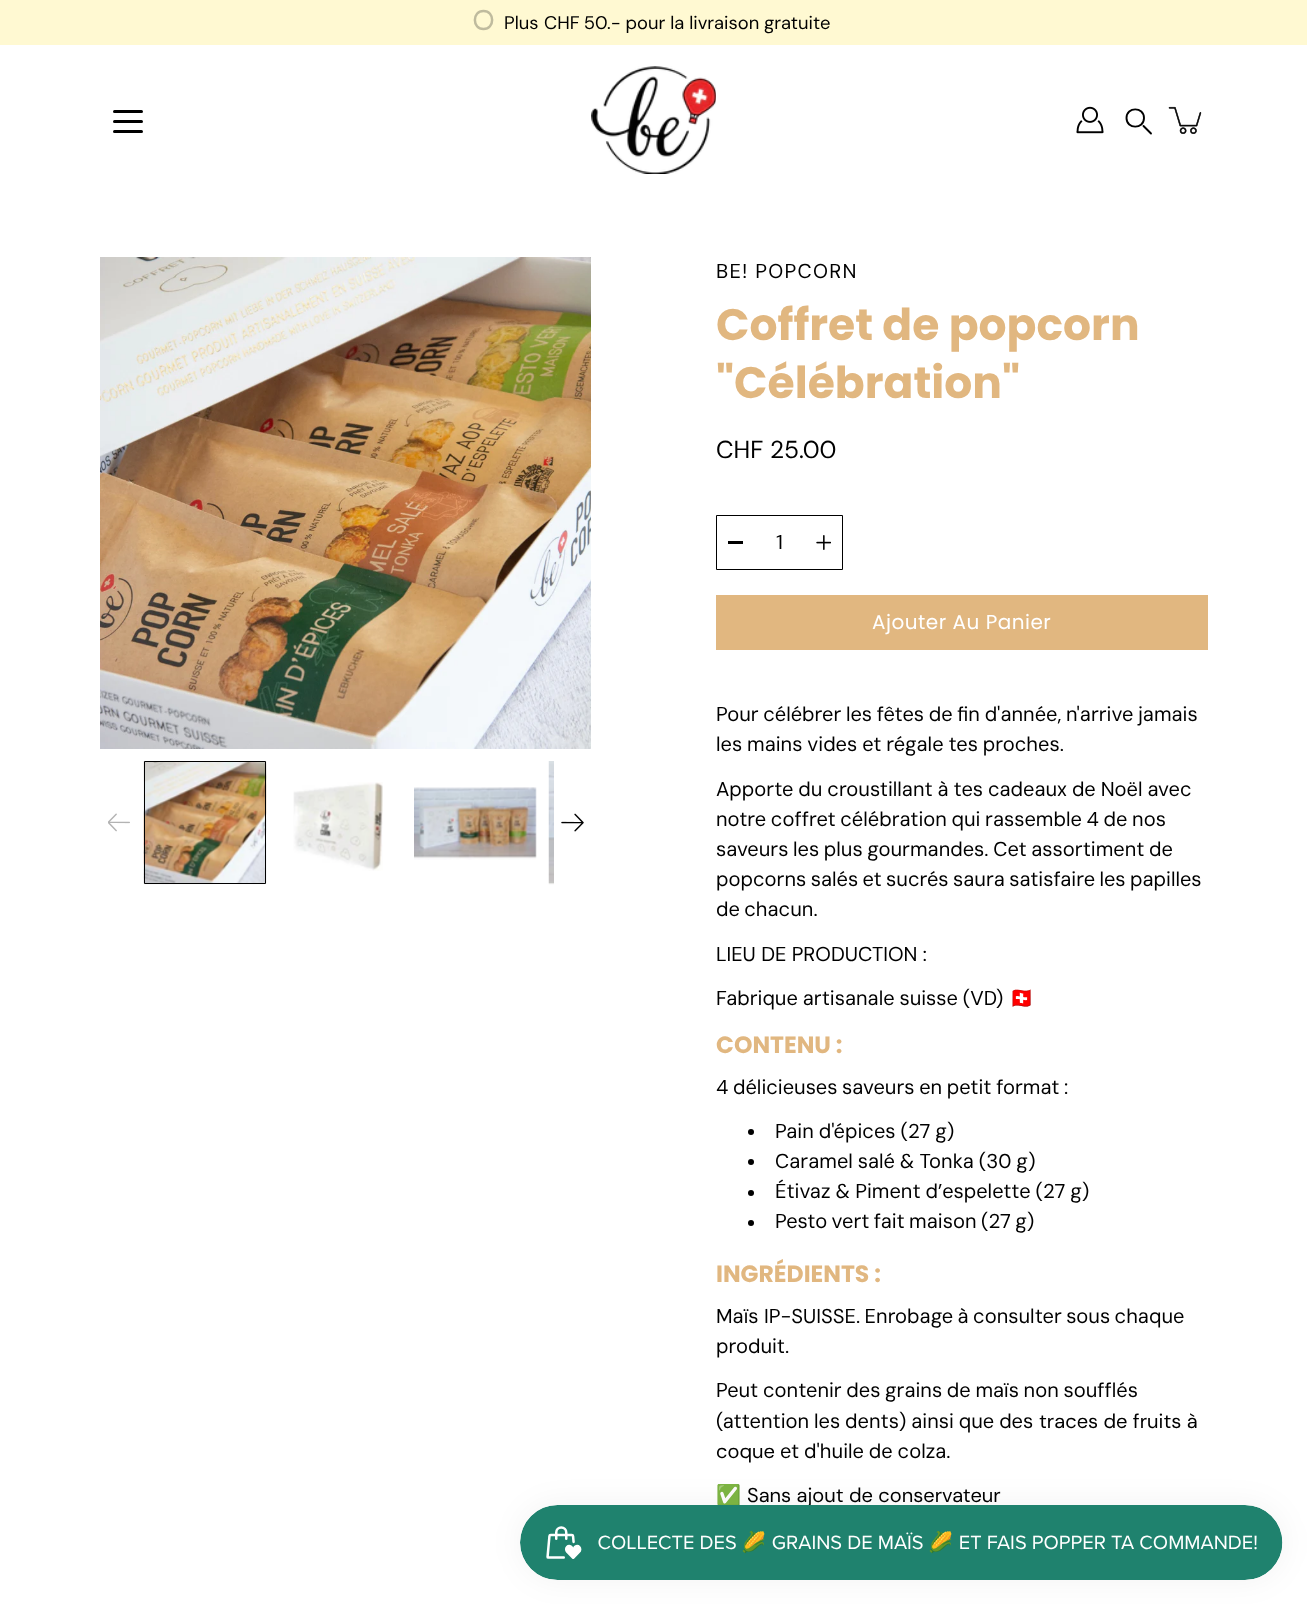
<svg xmlns="http://www.w3.org/2000/svg" width="1307" height="1604">
<style>
.a{font:18.4px 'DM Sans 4';fill:#000}
.b{font:20.1px DM Sans;letter-spacing:1.25px;fill:#000}
.c{font:bold 44px Poppins;fill:#e1b780}
.d{font:24.5px 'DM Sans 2';fill:#000}
.e{font:20.1px DM Sans;fill:#000}
.f{font:20px Poppins;letter-spacing:0.5px;fill:#fff}
.g{font:20.1px 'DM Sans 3';fill:#000}
.h{font:20.1px Noto Color Emoji;fill:#000}
.i{font:bold 23.5px Poppins;fill:#e1b780}
.j{font:20.1px 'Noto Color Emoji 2';fill:#000}
</style>
<rect width="100%" height="100%" fill="#fff"/>
<path fill="#fff9d2" d="M0 0h1307v45H0z"/>
<path fill="none" stroke="#bfbb9e" stroke-width="2.5" d="M483.5 11c-11.5 0-11.5 18 0 18c11.5 0 11.5-18 0-18z"/>
<image href="1.png" x="591" y="66" width="125" height="108"/>
<rect fill="#000" x="113" y="120" width="30" height="3" rx="1.5"/>
<rect fill="#000" x="113" y="110" width="30" height="3" rx="1.5"/>
<rect fill="#000" x="113" y="130" width="30" height="3" rx="1.5"/>
<image href="2.png" x="1076" y="106" width="28" height="28"/>
<path fill="none" stroke="#000" stroke-width="1.9" d="M1144 118c0 11.5-17.5 11.5-17.5 0c0-11.5 17.5-11.5 17.5 0z"/>
<path fill="none" stroke="#000" stroke-width="1.9" stroke-linecap="round" d="M1143.5 126l7.5 7.5"/>
<image href="3.png" x="1168" y="106" width="34" height="28"/>
<image href="4.png" x="100" y="257" width="491" height="492"/>
<image href="5.png" x="108" y="813" width="22" height="19"/>
<image href="6.png" x="143" y="761" width="124" height="124"/>
<path fill="none" stroke="#000" d="M144.5 761.5h121v122H144.5z"/>
<image href="7.png" x="293" y="782" width="90" height="89"/>
<image href="8.png" x="414" y="787" width="123" height="73"/>
<image href="9.png" x="548" y="761" width="6" height="124"/>
<image href="10.png" x="561" y="813" width="23" height="19"/>
<path fill="none" stroke="#000" d="M716.5 515.5h126v54H716.5z"/>
<path fill="#000" d="M728 541h15v3H728z"/>
<image href="11.png" x="816" y="535" width="15" height="15"/>
<path fill="#e1b780" d="M716 595h492v55H716z"/>
<circle fill="#000" cx="751" cy="1132" r="3"/>
<circle fill="#000" cx="751" cy="1162" r="3"/>
<circle fill="#000" cx="751" cy="1193" r="3"/>
<circle fill="#000" cx="751" cy="1223" r="3"/>
<rect fill="#0000000d" filter="blur(15.5px)" x="520" y="1505" width="763" height="75" rx="37.5"/>
<text class="a" x="504" y="29">Plus</text>
<text class="a" x="544" y="29" word-spacing="-0.75">CHF 50</text>
<text class="a" x="607" y="29">.- pour la livraison gratuite</text>
<text class="b" x="716" y="278">BE! POPCORN</text>
<text class="c" x="716" y="340">Coffret de popcorn</text>
<text class="c" x="716" y="398">"Célébration"</text>
<text class="d" x="716" y="458">CHF 25.00</text>
<text class="e" x="776" y="549">1</text>
<text class="f" x="872" y="629">Ajouter Au Panier</text>
<text class="e" x="716" y="721" word-spacing="-0.75">Pour célébrer les fêtes de fin d'année, n'arrive jamais</text>
<text class="e" x="716" y="751" word-spacing="-0.5">les mains vides et régale tes proches.</text>
<text class="e" x="716" y="796" word-spacing="-0.5">Apporte du croustillant à tes cadeaux de Noël avec</text>
<text class="e" x="716" y="826" word-spacing="-0.75">notre coffret célébration qui rassemble 4 de nos</text>
<text class="e" x="716" y="856" word-spacing="-0.75">saveurs les plus gourmandes. Cet assortiment de</text>
<text class="e" x="716" y="886" word-spacing="-1">popcorns salés et sucrés saura satisfaire les papilles</text>
<text class="e" x="716" y="916" word-spacing="-1">de chacun.</text>
<text class="g" x="716" y="961">LIEU DE PRODUCTION :</text>
<text class="e" x="716" y="1005" word-spacing="-0.5">Fabrique artisanale suisse (VD)</text>
<text class="h" x="1009" y="1005">🇨🇭</text>
<text class="i" x="716" y="1053">CONTENU :</text>
<text class="e" x="716" y="1094" word-spacing="-0.75">4 délicieuses saveurs en petit format :</text>
<text class="e" x="775" y="1138" word-spacing="-0.5">Pain d'épices (27 g)</text>
<text class="e" x="775" y="1168" word-spacing="-0.5">Caramel salé &amp; Tonka (30 g)</text>
<text class="e" x="775" y="1198" word-spacing="-0.5">Étivaz &amp; Piment d’espelette (27 g)</text>
<text class="e" x="775" y="1228" word-spacing="-1">Pesto vert fait maison (27 g)</text>
<text class="i" x="716" y="1282">INGRÉDIENTS :</text>
<text class="e" x="716" y="1323">Maïs</text>
<text class="e" x="764" y="1323" word-spacing="-1">IP-SUISSE. Enrobage à consulter sous chaque</text>
<text class="e" x="716" y="1353">produit.</text>
<text class="e" x="716" y="1397" word-spacing="-0.75">Peut contenir des grains de maïs non soufflés</text>
<text class="e" x="716" y="1428" word-spacing="-0.5">(attention les dents) ainsi que des</text>
<text class="g" x="1039" y="1428">traces de fruits à</text>
<text class="g" x="716" y="1458">coque</text>
<text class="e" x="780" y="1458" word-spacing="-0.5">et d'huile de colza.</text>
<text class="j" x="716" y="1502">✅</text>
<text class="g" x="747" y="1502">Sans ajout de conservateur</text>
<image href="12.png" x="520" y="1505" width="763" height="75"/>
</svg>
